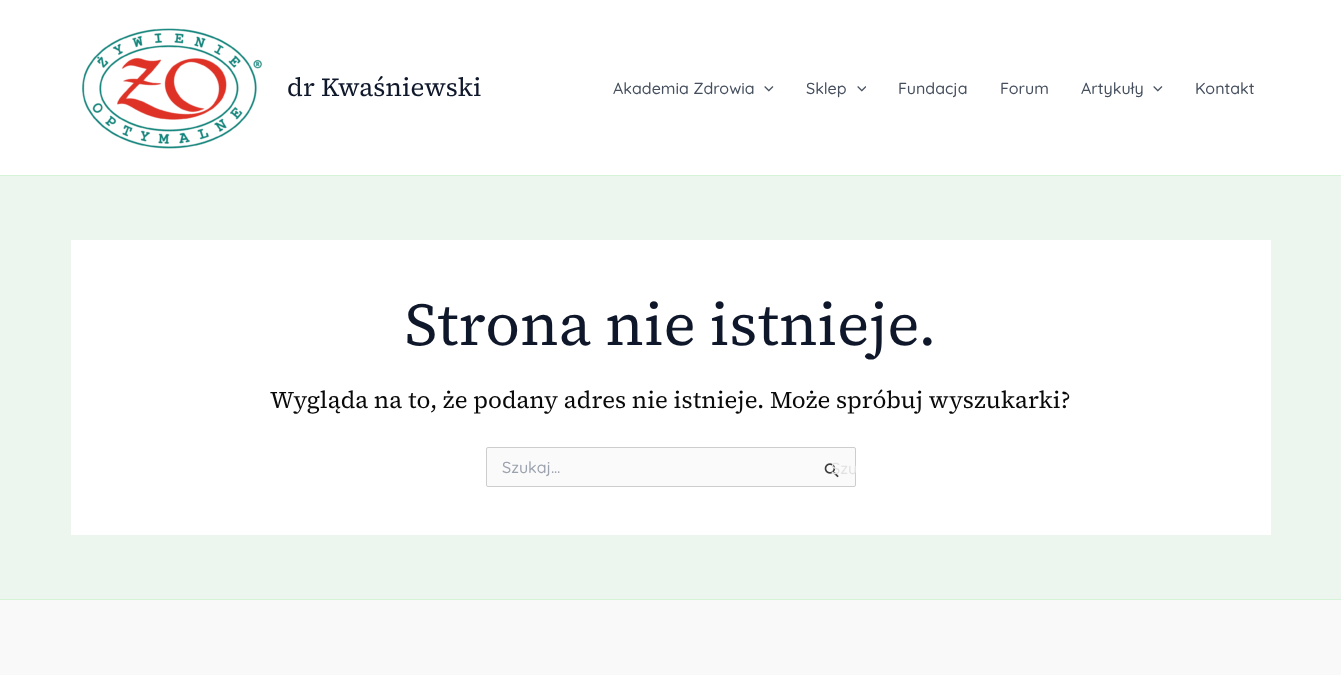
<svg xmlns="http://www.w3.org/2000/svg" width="1341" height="675">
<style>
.a{font:26px 'Source Serif 4';fill:#0f172a}
.b{font:300 16px Quicksand;fill:#454f5e}
.c{font:60px 'Source Serif 4';fill:#0f172a}
.d{font:24px 'Source Serif 4';fill:#090909}
.e{font:300 16px Quicksand;fill:#9ca3af}
.f{font:300 16px Quicksand;fill:#e1e1e1}
</style>
<rect width="100%" height="100%" fill="#edf6ee"/>
<path fill="#fff" d="M0 0h1341v175H0z"/>
<path fill="#d4f3d7" d="M0 175h1341v1H0z"/>
<image href="1.png" x="82" y="28" width="181" height="121"/>
<image href="2.png" x="764" y="86" width="10" height="6"/>
<image href="3.png" x="857" y="86" width="9" height="6"/>
<image href="2.png" x="1153" y="86" width="10" height="6"/>
<path fill="#fff" d="M71 240h1200v295H71z"/>
<rect fill="#fafafa" stroke="#cdcdcd" x="486.5" y="447.5" width="369" height="39" rx="1.5"/>
<image href="4.png" x="824" y="463" width="15" height="15"/>
<path fill="#f9f9f9" d="M0 600h1341v75H0z"/>
<path fill="#d4f3d7" d="M0 599h1341v1H0z"/>
<text class="a" x="287" y="96">dr Kwaśniewski</text>
<text class="b" x="613" y="94">Akademia Zdrowia</text>
<text class="b" x="806" y="94">Sklep</text>
<text class="b" x="898" y="94">Fundacja</text>
<text class="b" x="1000" y="94">Forum</text>
<text class="b" x="1081" y="94">Artykuły</text>
<text class="b" x="1195" y="94">Kontakt</text>
<text class="c" x="405" y="345">Strona nie istnieje.</text>
<text class="d" x="270" y="408">Wygląda na to, że podany adres nie istnieje. Może spróbuj wyszukarki?</text>
<text class="e" x="502" y="473">Szukaj…</text>
<text class="f" x="831" y="474">Szu</text>
</svg>
